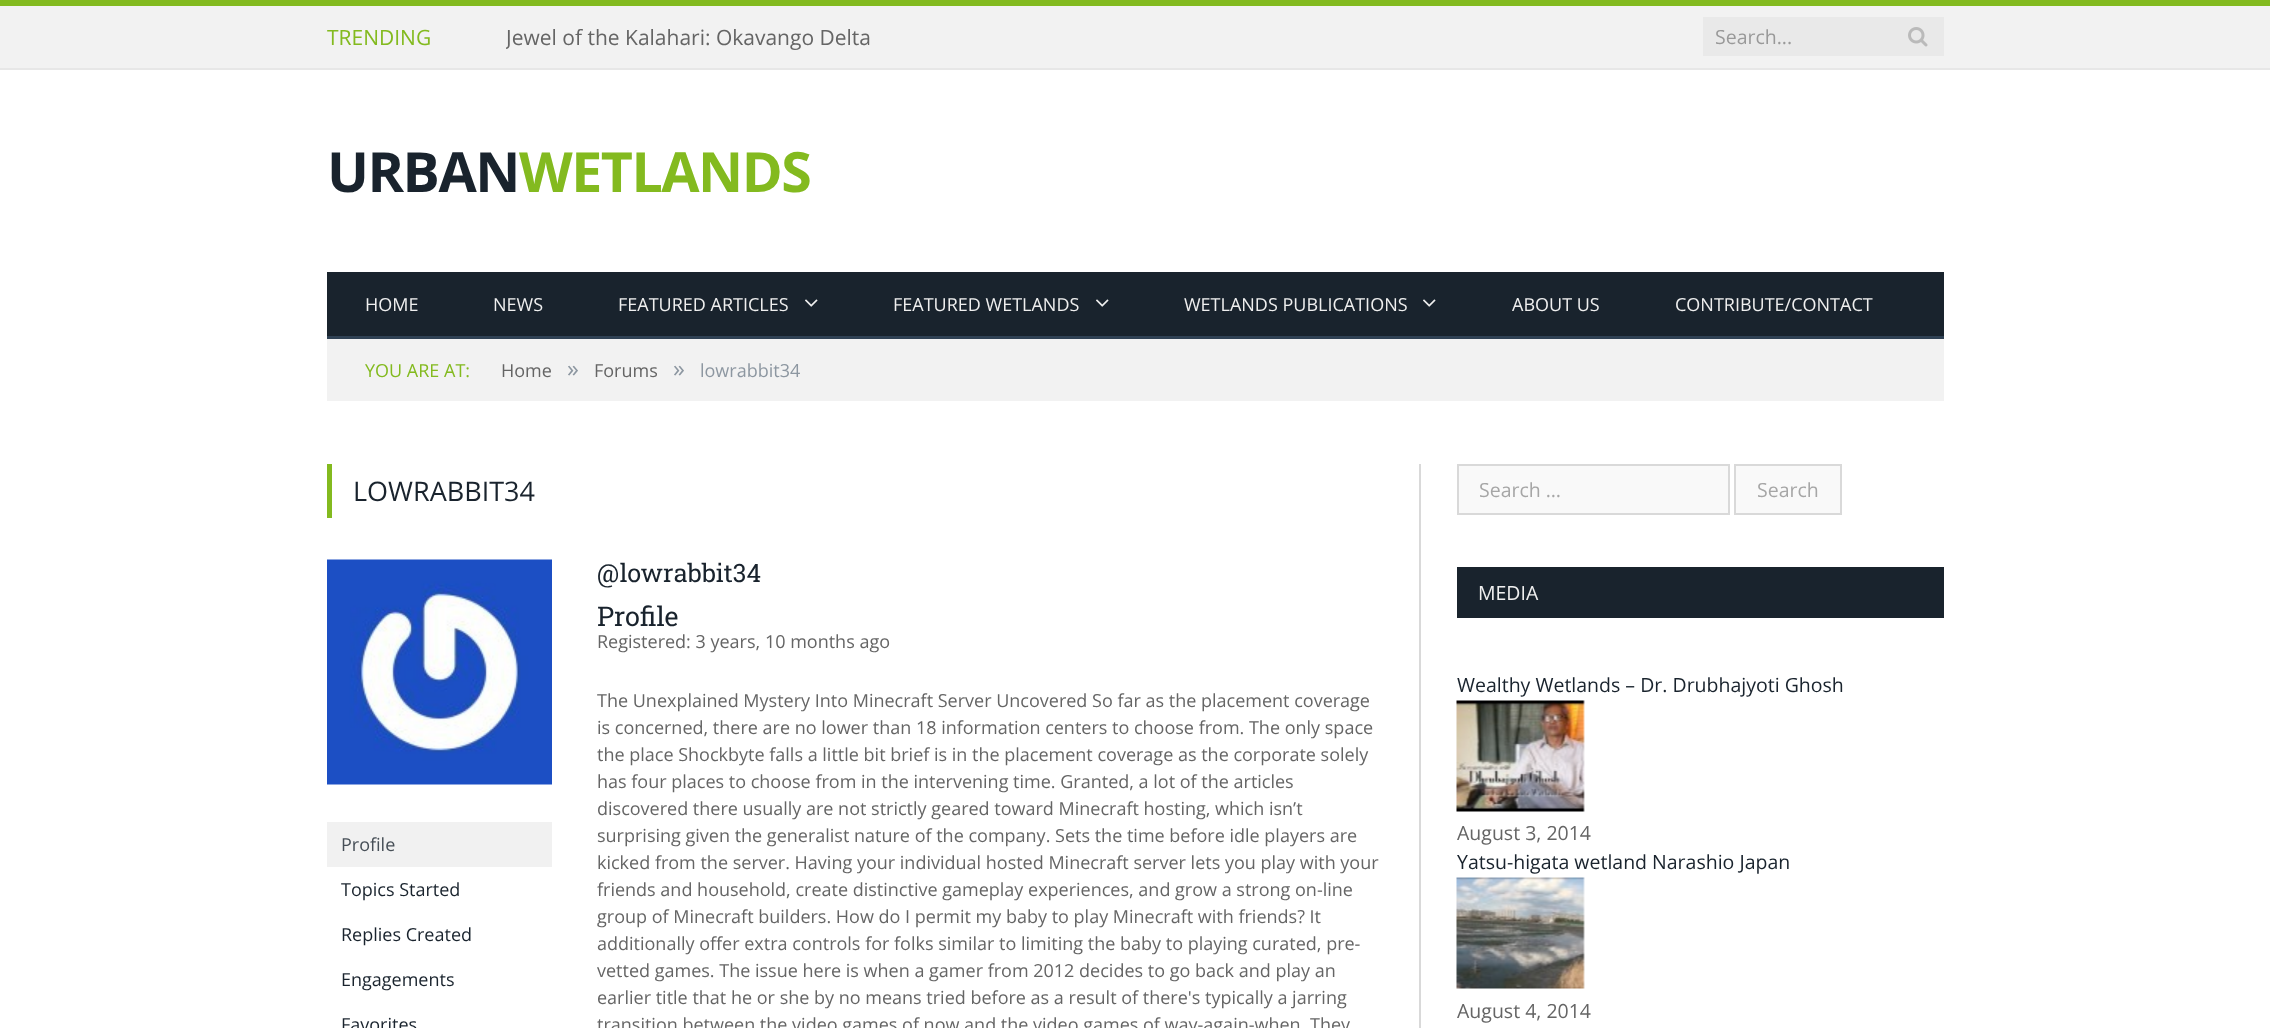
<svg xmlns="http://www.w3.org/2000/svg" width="2270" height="1028">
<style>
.a{font:21px Open Sans;fill:#83ba1f}
.b{font:21px Open Sans;fill:#656565}
.c{font:19.5px Open Sans;fill:#999}
.d{font:bold 55.5px Open Sans;letter-spacing:-1.5px;fill:#19232d}
.e{font:bold 55.5px Open Sans;letter-spacing:-1.5px;fill:#83ba1f}
.f{font:18px Open Sans;fill:#efefef}
.g{font:18px Open Sans;fill:#83ba1f}
.h{font:18px Open Sans;fill:#656565}
.i{font:24px Open Sans;fill:#8d97a1}
.j{font:18px Open Sans;fill:#8d97a1}
.k{font:27px Open Sans;fill:#19232d}
.l{font:18px Open Sans;fill:#474f57}
.m{font:18px Open Sans;fill:#19232d}
.n{font:25.25px Roboto Slab;fill:#19232d}
.o{font:27px Roboto Slab;fill:#19232d}
.p{font:19.5px Open Sans;fill:#a6a6a6}
.q{font:19.5px Open Sans;fill:#efefef}
.r{font:19.5px Open Sans;fill:#19232d}
.s{font:19.5px Open Sans;fill:#656565}
</style>
<defs>
<clipPath id="clip1"><path d="M506 24h381v27H506z"/></clipPath>
</defs>
<rect width="100%" height="100%" fill="#fff"/>
<path fill="#f2f2f2" d="M0 6h2270v62H0z"/>
<path fill="#83ba1f" d="M0 0h2270v6H0z"/>
<path fill="#e7e7e7" d="M0 68h2270v2H0z"/>
<path fill="#e9e9e9" d="M1703 17h241v39H1703z"/>
<image href="1.png" x="1908" y="27" width="20" height="20"/>
<path fill="#19232d" d="M327 272h1617v64H327z"/>
<path fill="#2f4154" d="M327 336h1617v3H327z"/>
<image href="2.png" x="805" y="299" width="13" height="8"/>
<image href="2.png" x="1096" y="299" width="13" height="8"/>
<image href="2.png" x="1423" y="299" width="13" height="8"/>
<path fill="#f2f2f2" d="M327 339h1617v62H327z"/>
<path fill="#83ba1f" d="M327 464h5v54H327z"/>
<image href="3.png" x="327" y="559" width="225" height="226"/>
<path fill="#f1f1f1" d="M327 822h225v45H327z"/>
<path fill="#d9d9d9" d="M1419 464h2v564H1419z"/>
<path fill="#f9f9f9" stroke="#d9d9d9" stroke-width="2" d="M1458 465h271v49H1458z"/>
<path fill="#f9f9f9" stroke="#d9d9d9" stroke-width="2" d="M1735 465h106v49H1735z"/>
<path fill="#19232d" d="M1457 567h487v51H1457z"/>
<image href="4.png" x="1456" y="700" width="129" height="112"/>
<image href="5.png" x="1456" y="877" width="129" height="112"/>
<text class="a" x="327" y="45">TRENDING</text>
<g clip-path="url(#clip1)">
<text class="b" x="506" y="45">Jewel of the Kalahari: Okavango Delta</text>
</g>
<text class="c" x="1715" y="44">Search...</text>
<text class="d" x="327" y="192">URBAN</text>
<text class="e" x="519" y="192">WETLANDS</text>
<text class="f" x="365" y="311">HOME</text>
<text class="f" x="493" y="311">NEWS</text>
<text class="f" x="618" y="311">FEATURED ARTICLES</text>
<text class="f" x="893" y="311">FEATURED WETLANDS</text>
<text class="f" x="1184" y="311">WETLANDS PUBLICATIONS</text>
<text class="f" x="1512" y="311">ABOUT US</text>
<text class="f" x="1675" y="311">CONTRIBUTE/CONTACT</text>
<text class="g" x="365" y="377">YOU ARE AT:</text>
<text class="h" x="501" y="377">Home</text>
<text class="i" x="567" y="377">»</text>
<text class="h" x="594" y="377">Forums</text>
<text class="i" x="673" y="377">»</text>
<text class="j" x="700" y="377">lowrabbit34</text>
<text class="k" x="353" y="501">LOWRABBIT34</text>
<text class="l" x="341" y="851">Profile</text>
<text class="m" x="341" y="896">Topics Started</text>
<text class="m" x="341" y="941">Replies Created</text>
<text class="m" x="341" y="986">Engagements</text>
<text class="m" x="341" y="1031">Favorites</text>
<text class="n" x="597" y="582">@lowrabbit34</text>
<text class="o" x="597" y="626">Profile</text>
<text class="h" x="597" y="648">Registered: 3 years, 10 months ago</text>
<text class="h" x="597" y="707">The Unexplained Mystery Into Minecraft Server Uncovered So far as the placement coverage</text>
<text class="h" x="597" y="734">is concerned, there are no lower than 18 information centers to choose from. The only space</text>
<text class="h" x="597" y="761">the place Shockbyte falls a little bit brief is in the placement coverage as the corporate solely</text>
<text class="h" x="597" y="788">has four places to choose from in the intervening time. Granted, a lot of the articles</text>
<text class="h" x="597" y="815">discovered there usually are not strictly geared toward Minecraft hosting, which isn’t</text>
<text class="h" x="597" y="842">surprising given the generalist nature of the company. Sets the time before idle players are</text>
<text class="h" x="597" y="869">kicked from the server. Having your individual hosted Minecraft server lets you play with your</text>
<text class="h" x="597" y="896">friends and household, create distinctive gameplay experiences, and grow a strong on-line</text>
<text class="h" x="597" y="923">group of Minecraft builders. How do I permit my baby to play Minecraft with friends? It</text>
<text class="h" x="597" y="950">additionally offer extra controls for folks similar to limiting the baby to playing curated, pre-</text>
<text class="h" x="597" y="977">vetted games. The issue here is when a gamer from 2012 decides to go back and play an</text>
<text class="h" x="597" y="1004">earlier title that he or she by no means tried before as a result of there's typically a jarring</text>
<text class="h" x="597" y="1031">transition between the video games of now and the video games of way-again-when. They</text>
<text class="p" x="1479" y="497">Search …</text>
<text class="p" x="1757" y="497">Search</text>
<text class="q" x="1478" y="600">MEDIA</text>
<text class="r" x="1457" y="692">Wealthy Wetlands – Dr. Drubhajyoti Ghosh</text>
<text class="s" x="1457" y="840">August 3, 2014</text>
<text class="r" x="1457" y="869">Yatsu-higata wetland Narashio Japan</text>
<text class="s" x="1457" y="1018">August 4, 2014</text>
</svg>
